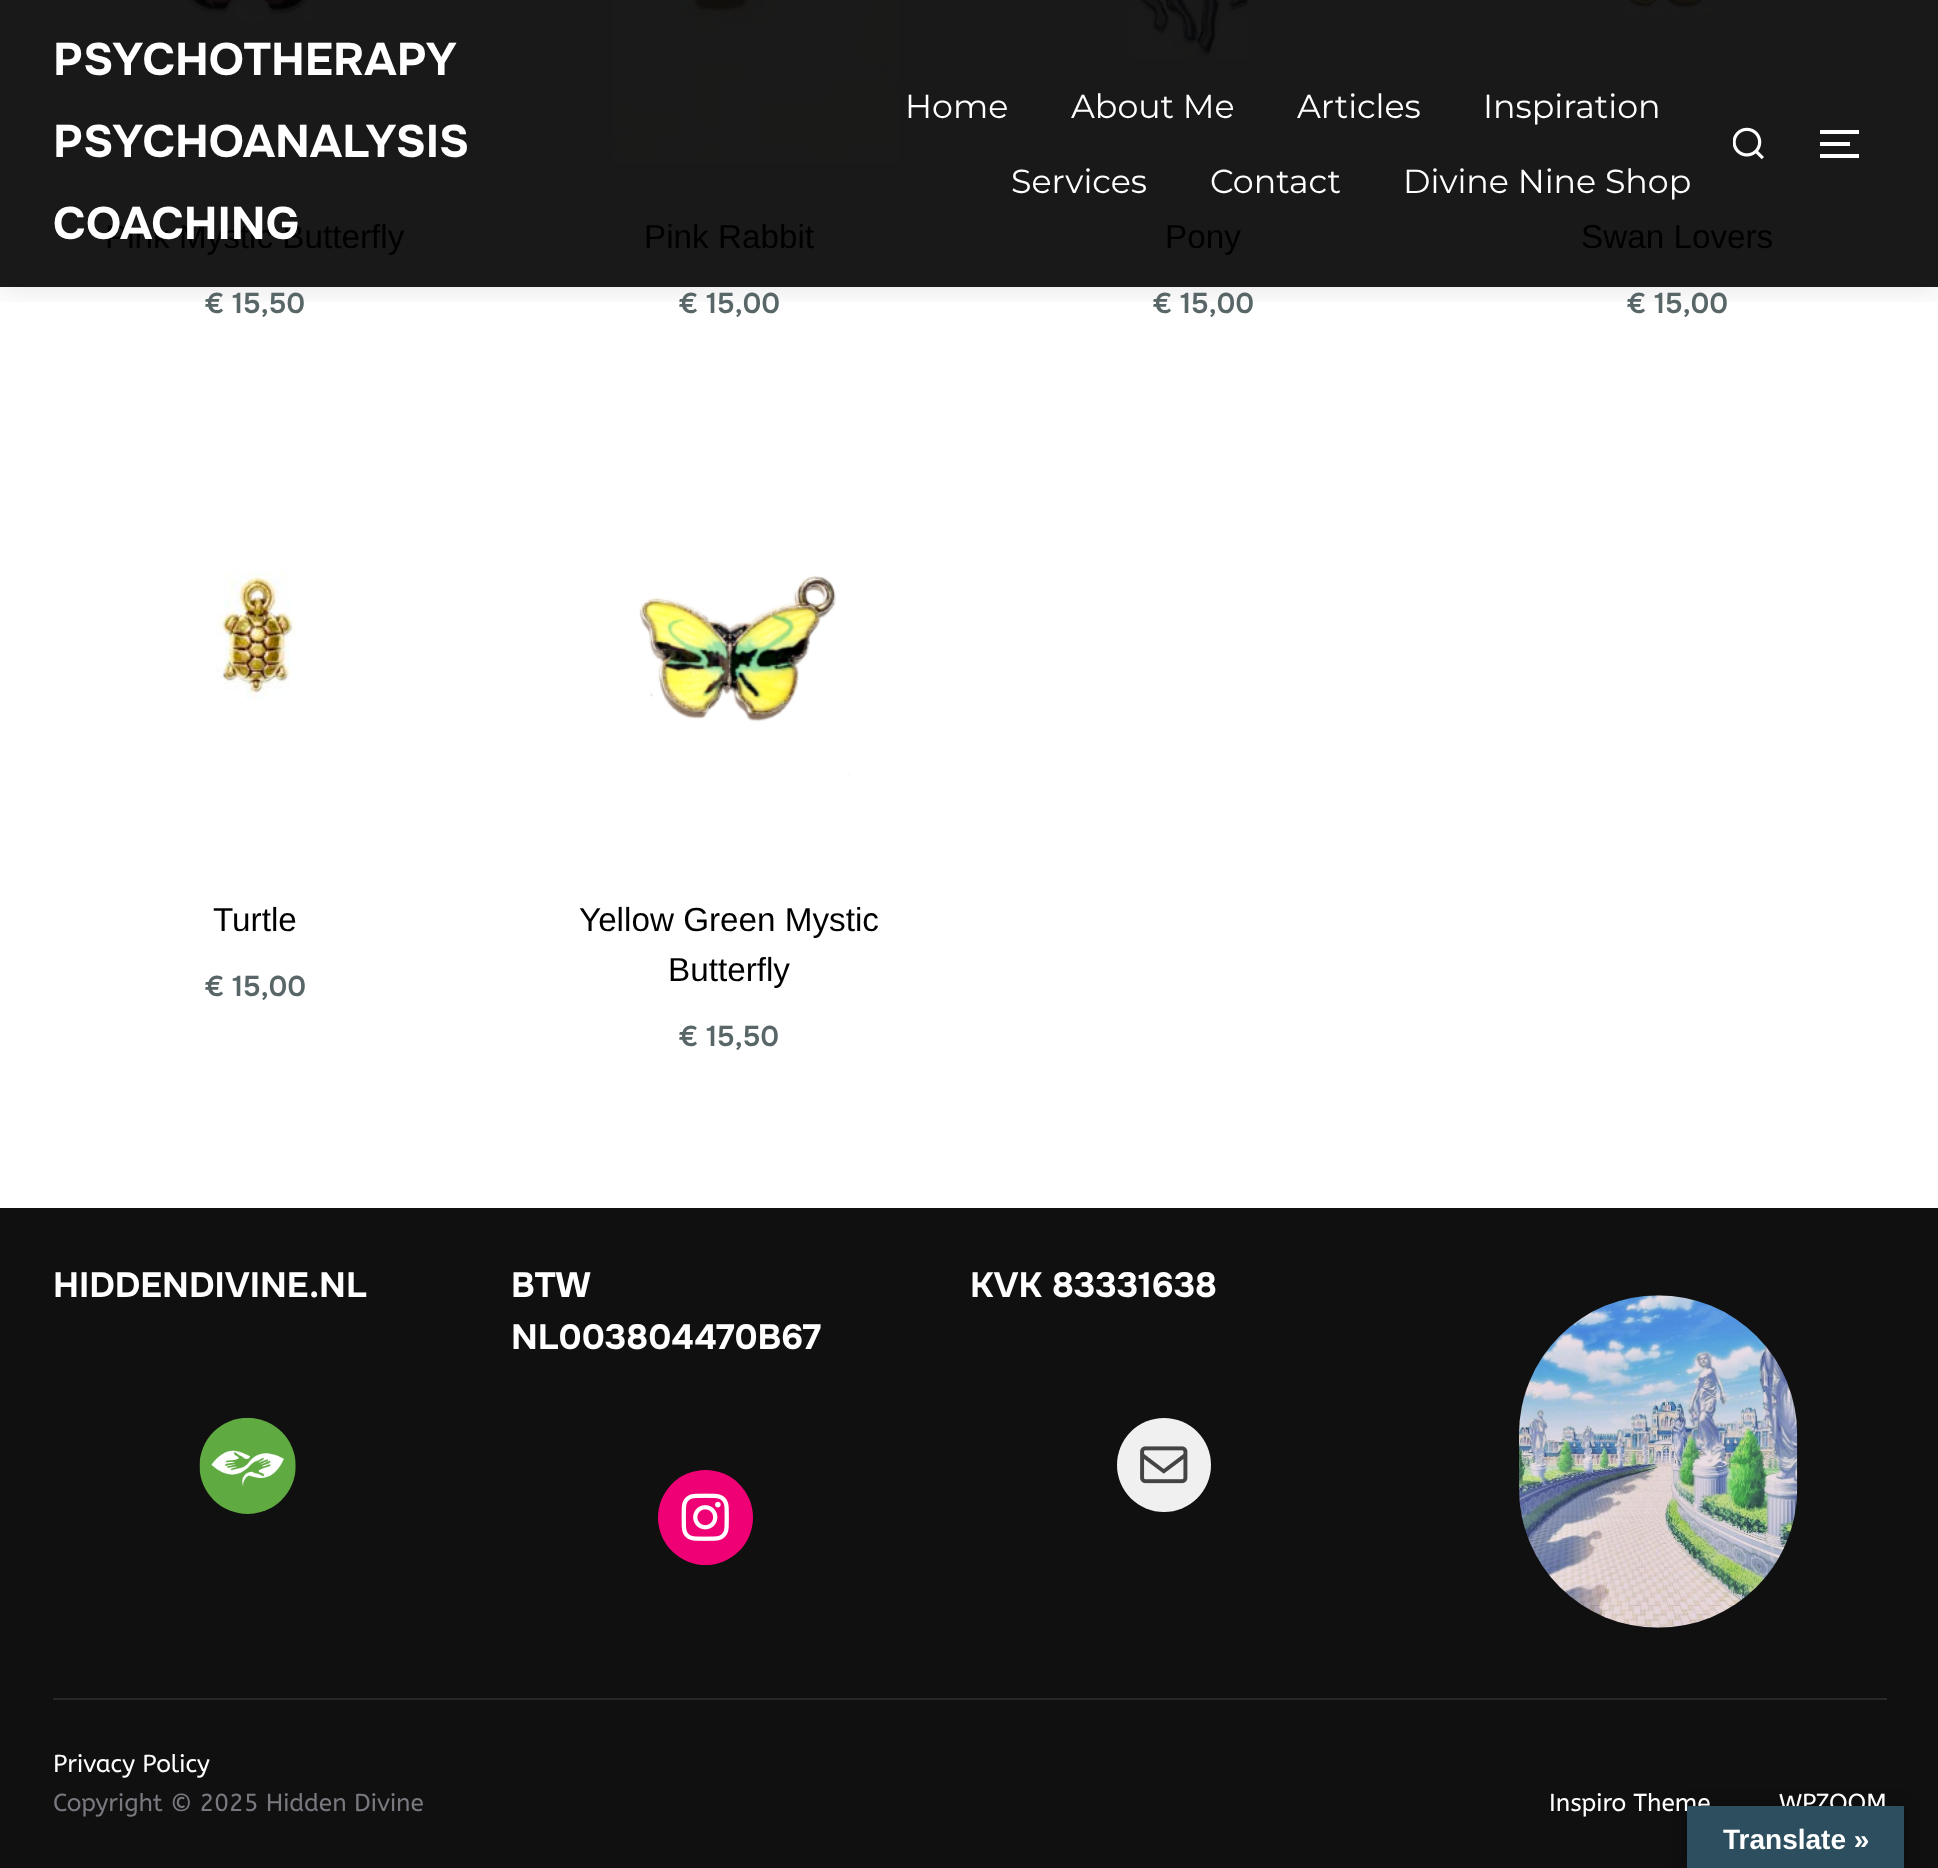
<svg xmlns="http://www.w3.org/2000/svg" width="1938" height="1868">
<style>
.a{font:bold 45.5px Onest;fill:#fff}
.b{font:100 33.25px Montserrat;fill:#fff}
.c{font:33.25px Liberation Sans;fill:#000}
.d{font:600 28.5px Onest;fill:#596668}
.e{font:bold 35px Onest;fill:#fff}
.f{font:24.5px ABeeZee;fill:#fff}
.g{font:24.5px ABeeZee;fill:#78787f}
.h{font:bold 28px Liberation Sans;fill:#fff}
</style>
<defs>
<clipPath id="clip1"><path d="M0 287h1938v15H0z"/></clipPath>
</defs>
<rect width="100%" height="100%" fill="#fff"/>
<path fill="#191919" d="M0 0h1938v287H0z"/>
<image href="2.png" x="186" y="0" width="128" height="21"/>
<image href="3.png" x="612" y="0" width="287" height="163"/>
<image href="4.png" x="1130" y="0" width="119" height="60"/>
<image href="5.png" x="1625" y="0" width="87" height="18"/>
<g clip-path="url(#clip1)">
<path fill="#0000001a" filter="blur(16px)" d="M-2 -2h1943v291H-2z"/>
</g>
<image href="1.png" x="1733" y="127" width="31" height="33"/>
<path fill="#fff" d="M1820 130h39v4H1820z"/>
<path fill="#fff" d="M1820 142h30v4H1820z"/>
<path fill="#fff" d="M1820 154h39v4H1820z"/>
<image href="6.png" x="216" y="571" width="81" height="129"/>
<image href="7.png" x="639" y="575" width="211" height="201"/>
<path fill="#101010" d="M0 1208h1938v660H0z"/>
<image href="8.png" x="199" y="1417" width="97" height="97"/>
<circle fill="#f00075" cx="705.5" cy="1517.5" r="47.5"/>
<image href="9.png" x="681" y="1493" width="48" height="48"/>
<circle fill="#f0f0f0" cx="1164" cy="1465" r="47"/>
<image href="10.png" x="1140" y="1446" width="48" height="38"/>
<image href="11.png" x="1519" y="1295" width="279" height="333"/>
<path fill="#282828" d="M53 1698h1834v2H53z"/>
<path fill="#0000004d" filter="blur(8px)" d="M1687 1806h217v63H1687z"/>
<text class="a" x="53" y="75">PSYCHOTHERAPY</text>
<text class="a" x="53" y="157">PSYCHOANALYSIS</text>
<text class="b" x="905" y="118">Home</text>
<text class="b" x="1071" y="118">About Me</text>
<text class="b" x="1297" y="118">Articles</text>
<text class="b" x="1483" y="118">Inspiration</text>
<text class="b" x="1011" y="193">Services</text>
<text class="b" x="1210" y="193">Contact</text>
<text class="b" x="1403" y="193">Divine Nine Shop</text>
<text class="c" x="105" y="248">Pink Mystic Butterfly</text>
<text class="a" x="53" y="239">COACHING</text>
<text class="d" x="204" y="313">€ 15,50</text>
<text class="c" x="644" y="248">Pink Rabbit</text>
<text class="d" x="678" y="313">€ 15,00</text>
<text class="c" x="1165" y="248">Pony</text>
<text class="d" x="1152" y="313">€ 15,00</text>
<text class="c" x="1581" y="248">Swan Lovers</text>
<text class="d" x="1626" y="313">€ 15,00</text>
<text class="c" x="213" y="931">Turtle</text>
<text class="d" x="204" y="996">€ 15,00</text>
<text class="c" x="579" y="931">Yellow Green Mystic</text>
<text class="c" x="668" y="981">Butterfly</text>
<text class="d" x="678" y="1046">€ 15,50</text>
<text class="e" x="53" y="1297">HIDDENDIVINE.NL</text>
<text class="e" x="511" y="1297">BTW</text>
<text class="e" x="511" y="1349">NL003804470B67</text>
<text class="e" x="970" y="1297">KVK 83331638</text>
<text class="f" x="53" y="1772">Privacy Policy</text>
<text class="g" x="53" y="1811">Copyright © 2025 Hidden Divine</text>
<text class="f" x="1549" y="1811">Inspiro Theme</text>
<text class="f" x="1779" y="1811">WPZOOM</text>
<path fill="#2c4e5e" d="M1687 1806h217v62H1687z"/>
<text class="h" x="1723" y="1849">Translate »</text>
</svg>
